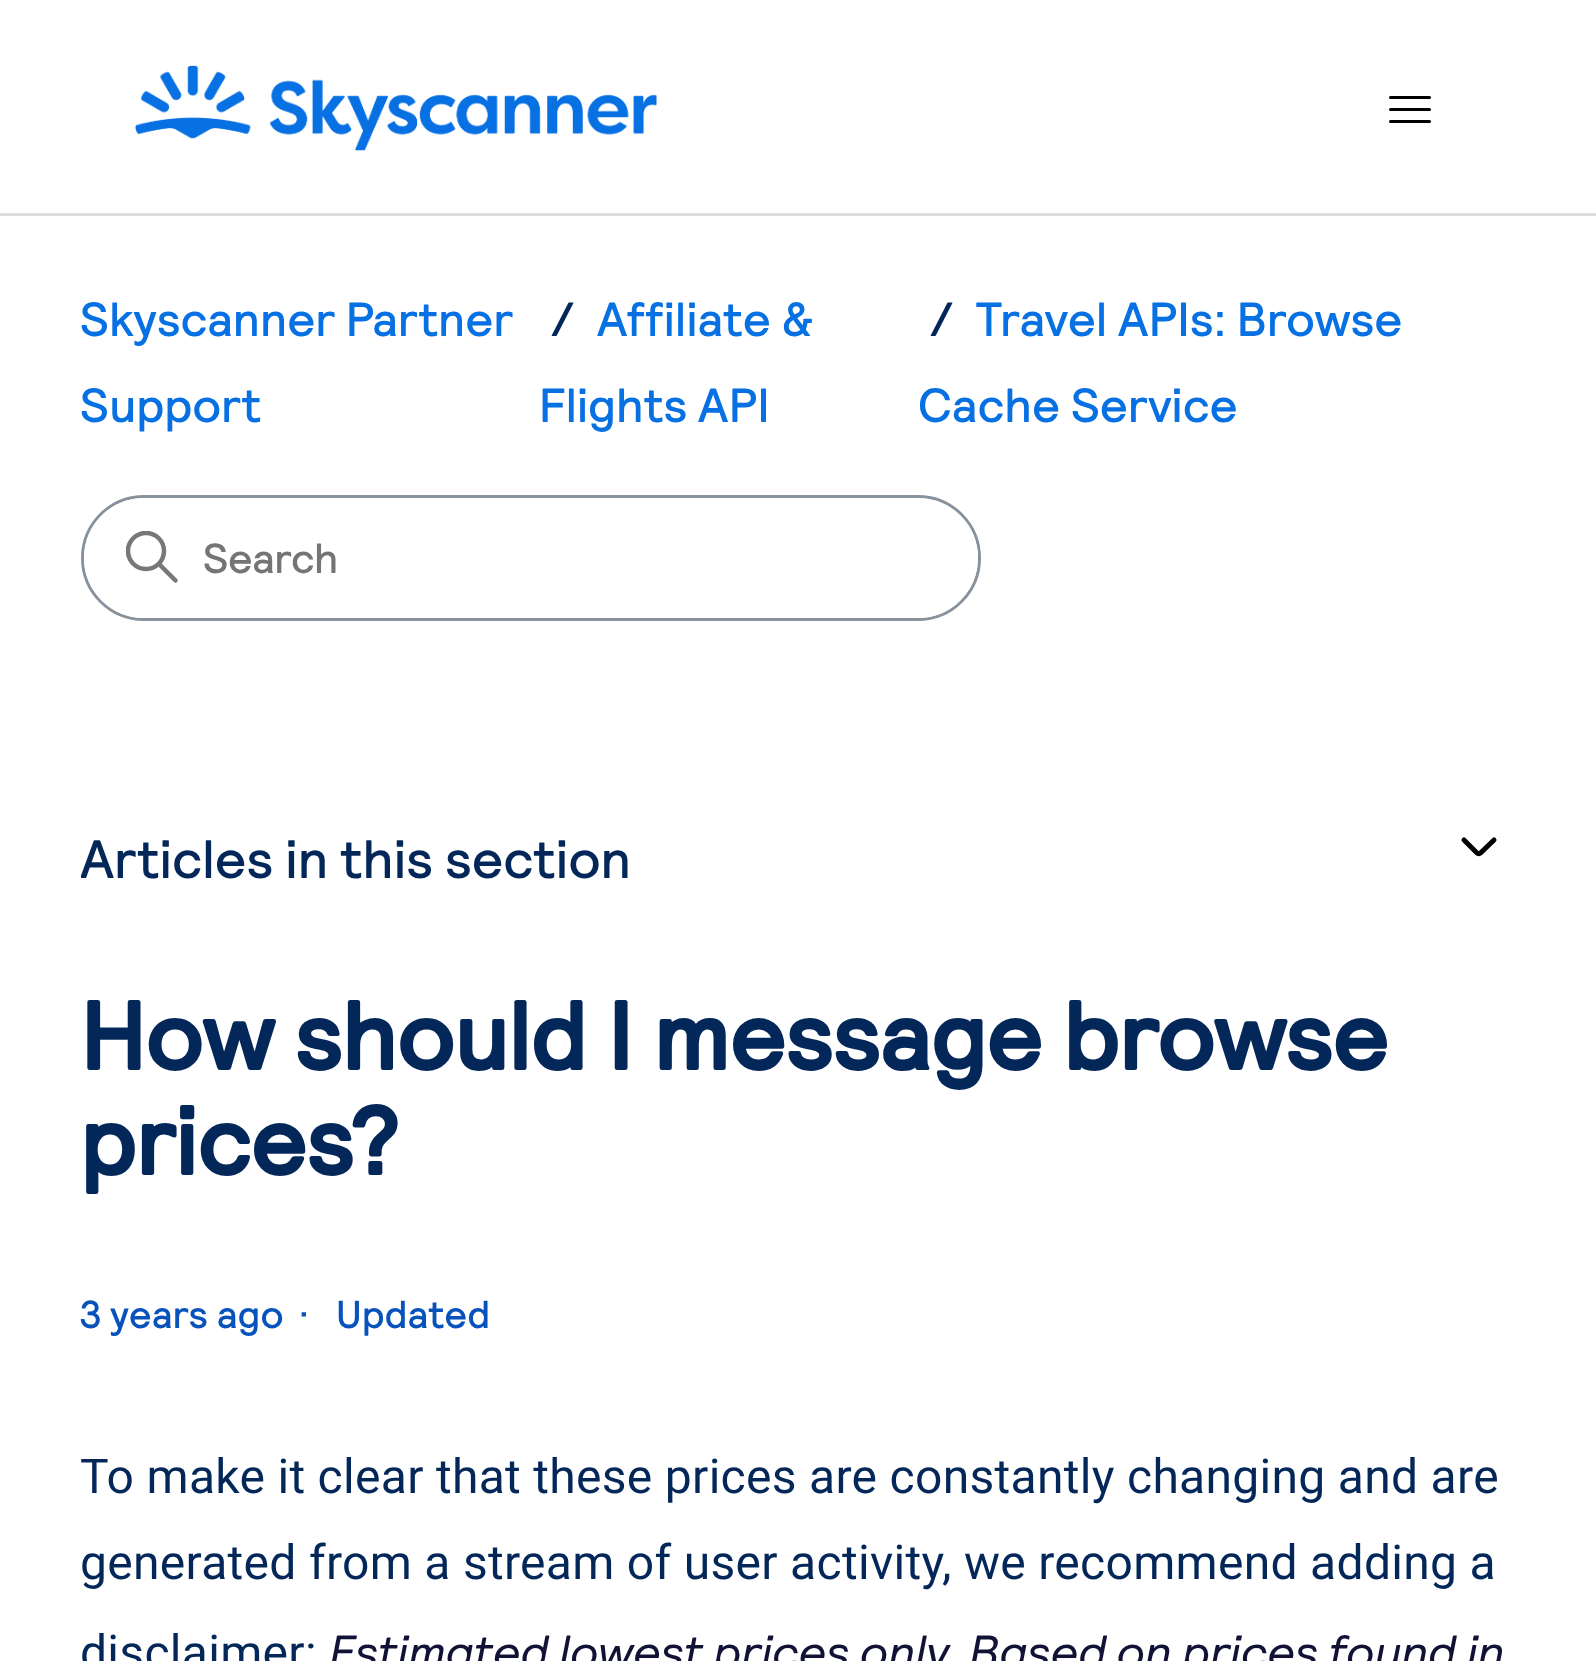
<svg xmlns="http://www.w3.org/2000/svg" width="1596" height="1661">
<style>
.a{font:500 48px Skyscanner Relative;letter-spacing:0.3px;fill:#0770e3}
.b{font:500 48px Skyscanner Relative;letter-spacing:0.3px;fill:#042759}
.c{font:500 42px Skyscanner Relative;fill:#757575}
.d{font:500 54px Skyscanner Relative;letter-spacing:0.3px;fill:#042759}
.e{font:bold 96px Skyscanner Relative;letter-spacing:0.3px;fill:#042759}
.f{font:500 39px Skyscanner Relative;letter-spacing:0.3px;fill:#0852bb}
.g{font:48px Roboto;letter-spacing:0.3px;fill:#042759}
.h{font:italic 48px Skyscanner Relative;letter-spacing:0.3px;fill:#111236}
</style>
<defs>
<clipPath id="clip1"><path d="M126 531h54v54H126z"/></clipPath>
<clipPath id="clip2"><path d="M81 786h1434v135H81z"/></clipPath>
</defs>
<rect width="100%" height="100%" fill="#fff"/>
<image href="1.png" x="135" y="65" width="522" height="86"/>
<path fill="none" stroke="#000" stroke-width="3" stroke-linecap="round" d="M1390.5 97.5h39m-39 12h39m-39 12h39"/>
<path fill="#ddd" d="M0 213h1596v3H0z"/>
<rect fill="none" stroke="#87929d" stroke-width="3" x="82.5" y="496.5" width="897" height="123" rx="61.5"/>
<rect fill="#fff" x="84" y="498" width="894" height="120" rx="60"/>
<g clip-path="url(#clip1)">
<circle fill="none" stroke="#777" stroke-width="4.5" cx="146" cy="551" r="18"/>
</g>
<path fill="none" stroke="#777" stroke-width="4.5" stroke-linecap="round" d="M175.5 580.5l-15.5-15.5"/>
<path fill="none" stroke="#000" stroke-width="5" stroke-linecap="round" d="M1464 840l13 13c1 1 2.5 1 3.5 0l13.5-13"/>
<text class="a" x="80" y="336">Skyscanner Partner</text>
<text class="a" x="80" y="422">Support</text>
<text class="b" x="551" y="336">/</text>
<text class="a" x="597" y="336">Affiliate &amp;</text>
<text class="a" x="539" y="422">Flights API</text>
<text class="b" x="930" y="336">/</text>
<text class="a" x="976" y="336">Travel APIs: Browse</text>
<text class="a" x="918" y="422">Cache Service</text>
<text class="c" x="203" y="573">Search</text>
<g clip-path="url(#clip2)">
<text class="d" x="80" y="878">Articles in this section</text>
</g>
<text class="e" x="80" y="1070">How should I message browse</text>
<text class="e" x="80" y="1175">prices?</text>
<text class="f" x="80" y="1328">3 years ago</text>
<text class="f" x="299" y="1328">·</text>
<text class="f" x="336" y="1328">Updated</text>
<text class="g" x="80" y="1493">To make it clear that these prices are constantly changing and are</text>
<text class="g" x="80" y="1579">generated from a stream of user activity, we recommend adding a</text>
<text class="g" x="80" y="1669">disclaimer:</text>
<text class="h" x="329" y="1669">Estimated lowest prices only. Based on prices found in</text>
</svg>
